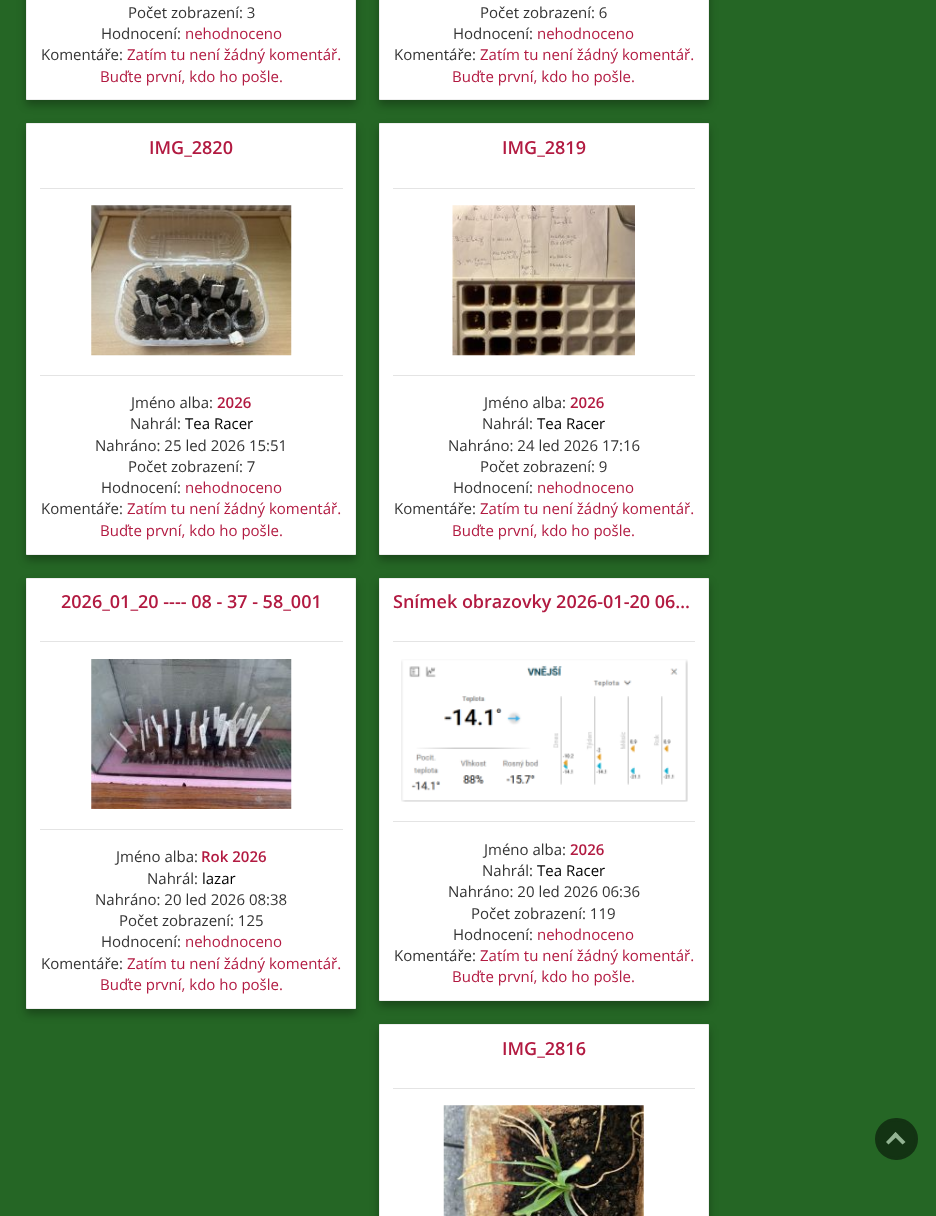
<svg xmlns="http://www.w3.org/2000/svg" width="936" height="1216">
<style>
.a{font:15px Open Sans;fill:#333}
.b{font:15px Open Sans;fill:#b21a41}
.c{font:600 18px Open Sans;fill:#b21a41}
.d{font:600 15px Open Sans;fill:#b21a41}
.e{font:15px Open Sans;fill:#000}
</style>
<rect width="100%" height="100%" fill="#256625"/>
<path fill="#0000004d" filter="blur(4px)" d="M26 -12h330v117H26z"/>
<path fill="#fff" stroke="#efefef" d="M26.5 -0.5h329v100H26.5z"/>
<path fill="#0000004d" filter="blur(4px)" d="M379 -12h330v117H379z"/>
<path fill="#fff" stroke="#efefef" d="M379.5 -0.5h329v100H379.5z"/>
<path fill="#0000004d" filter="blur(4px)" d="M26 128h330v432H26z"/>
<path fill="#fff" stroke="#efefef" d="M26.5 123.5h329v431H26.5z"/>
<path fill="#e4e4e4" d="M40 188h303v1H40z"/>
<image href="1.png" x="91" y="205" width="201" height="151"/>
<path fill="#e4e4e4" d="M40 375h303v1H40z"/>
<path fill="#0000004d" filter="blur(4px)" d="M379 128h330v432H379z"/>
<path fill="#fff" stroke="#efefef" d="M379.5 123.5h329v431H379.5z"/>
<path fill="#e4e4e4" d="M393 188h302v1H393z"/>
<image href="2.png" x="452" y="205" width="183" height="151"/>
<path fill="#e4e4e4" d="M393 375h302v1H393z"/>
<path fill="#0000004d" filter="blur(4px)" d="M26 583h330v431H26z"/>
<path fill="#fff" stroke="#efefef" d="M26.5 578.5h329v430H26.5z"/>
<path fill="#e4e4e4" d="M40 641h303v1H40z"/>
<image href="3.png" x="91" y="659" width="201" height="150"/>
<path fill="#e4e4e4" d="M40 829h303v1H40z"/>
<path fill="#0000004d" filter="blur(4px)" d="M379 583h330v423H379z"/>
<path fill="#fff" stroke="#efefef" d="M379.5 578.5h329v422H379.5z"/>
<path fill="#e4e4e4" d="M393 641h302v1H393z"/>
<image href="4.png" x="401" y="659" width="287" height="143"/>
<path fill="#e4e4e4" d="M393 821h302v1H393z"/>
<path fill="#0000004d" filter="blur(4px)" d="M379 1029h330v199H379z"/>
<path fill="#fff" stroke="#efefef" d="M379.5 1024.5h329v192H379.5z"/>
<path fill="#e4e4e4" d="M393 1088h302v1H393z"/>
<image href="5.png" x="443" y="1105" width="201" height="111"/>
<rect fill="#133313" stroke="#133313" stroke-width="3" x="876.5" y="1119.5" width="40" height="39" rx="19.5"/>
<path fill="#92b392" d="M898.5 1135l-10 9.5l-2.5-2.5l9.5-10z"/>
<path fill="#92b392" d="M905.5 1142l-3 2.5l-9.5-9.5l2.5-3z"/>
<text class="a" x="128" y="18">Počet zobrazení: 3</text>
<text class="a" x="101" y="39">Hodnocení:</text>
<text class="b" x="185" y="39">nehodnoceno</text>
<text class="a" x="41" y="60">Komentáře:</text>
<text class="b" x="127" y="60">Zatím tu není žádný komentář.</text>
<text class="b" x="100" y="82">Buďte první, kdo ho pošle.</text>
<text class="a" x="480" y="18">Počet zobrazení: 6</text>
<text class="a" x="453" y="39">Hodnocení:</text>
<text class="b" x="537" y="39">nehodnoceno</text>
<text class="a" x="394" y="60">Komentáře:</text>
<text class="b" x="480" y="60">Zatím tu není žádný komentář.</text>
<text class="b" x="452" y="82">Buďte první, kdo ho pošle.</text>
<text class="c" x="149" y="154">IMG_2820</text>
<text class="a" x="131" y="408">Jméno alba:</text>
<text class="d" x="217" y="408">2026</text>
<text class="a" x="130" y="429">Nahrál:</text>
<text class="e" x="185" y="429">Tea Racer</text>
<text class="a" x="95" y="451">Nahráno: 25 led 2026 15:51</text>
<text class="a" x="128" y="472">Počet zobrazení: 7</text>
<text class="a" x="101" y="493">Hodnocení:</text>
<text class="b" x="185" y="493">nehodnoceno</text>
<text class="a" x="41" y="514">Komentáře:</text>
<text class="b" x="127" y="514">Zatím tu není žádný komentář.</text>
<text class="b" x="100" y="536">Buďte první, kdo ho pošle.</text>
<text class="c" x="502" y="154">IMG_2819</text>
<text class="a" x="484" y="408">Jméno alba:</text>
<text class="d" x="570" y="408">2026</text>
<text class="a" x="482" y="429">Nahrál:</text>
<text class="e" x="537" y="429">Tea Racer</text>
<text class="a" x="448" y="451">Nahráno: 24 led 2026 17:16</text>
<text class="a" x="480" y="472">Počet zobrazení: 9</text>
<text class="a" x="453" y="493">Hodnocení:</text>
<text class="b" x="537" y="493">nehodnoceno</text>
<text class="a" x="394" y="514">Komentáře:</text>
<text class="b" x="480" y="514">Zatím tu není žádný komentář.</text>
<text class="b" x="452" y="536">Buďte první, kdo ho pošle.</text>
<text class="c" x="61" y="608">2026_01_20 ---- 08 - 37 - 58_001</text>
<text class="a" x="116" y="862">Jméno alba:</text>
<text class="d" x="201" y="862">Rok 2026</text>
<text class="a" x="147" y="884">Nahrál:</text>
<text class="e" x="202" y="884">lazar</text>
<text class="a" x="95" y="905">Nahráno: 20 led 2026 08:38</text>
<text class="a" x="119" y="926">Počet zobrazení: 125</text>
<text class="a" x="101" y="947">Hodnocení:</text>
<text class="b" x="185" y="947">nehodnoceno</text>
<text class="a" x="41" y="969">Komentáře:</text>
<text class="b" x="127" y="969">Zatím tu není žádný komentář.</text>
<text class="b" x="100" y="990">Buďte první, kdo ho pošle.</text>
<text class="c" x="393" y="608">Snímek obrazovky 2026-01-20 06…</text>
<text class="a" x="484" y="855">Jméno alba:</text>
<text class="d" x="570" y="855">2026</text>
<text class="a" x="482" y="876">Nahrál:</text>
<text class="e" x="537" y="876">Tea Racer</text>
<text class="a" x="448" y="897">Nahráno: 20 led 2026 06:36</text>
<text class="a" x="471" y="919">Počet zobrazení: 119</text>
<text class="a" x="453" y="940">Hodnocení:</text>
<text class="b" x="537" y="940">nehodnoceno</text>
<text class="a" x="394" y="961">Komentáře:</text>
<text class="b" x="480" y="961">Zatím tu není žádný komentář.</text>
<text class="b" x="452" y="982">Buďte první, kdo ho pošle.</text>
<text class="c" x="502" y="1055">IMG_2816</text>
</svg>
